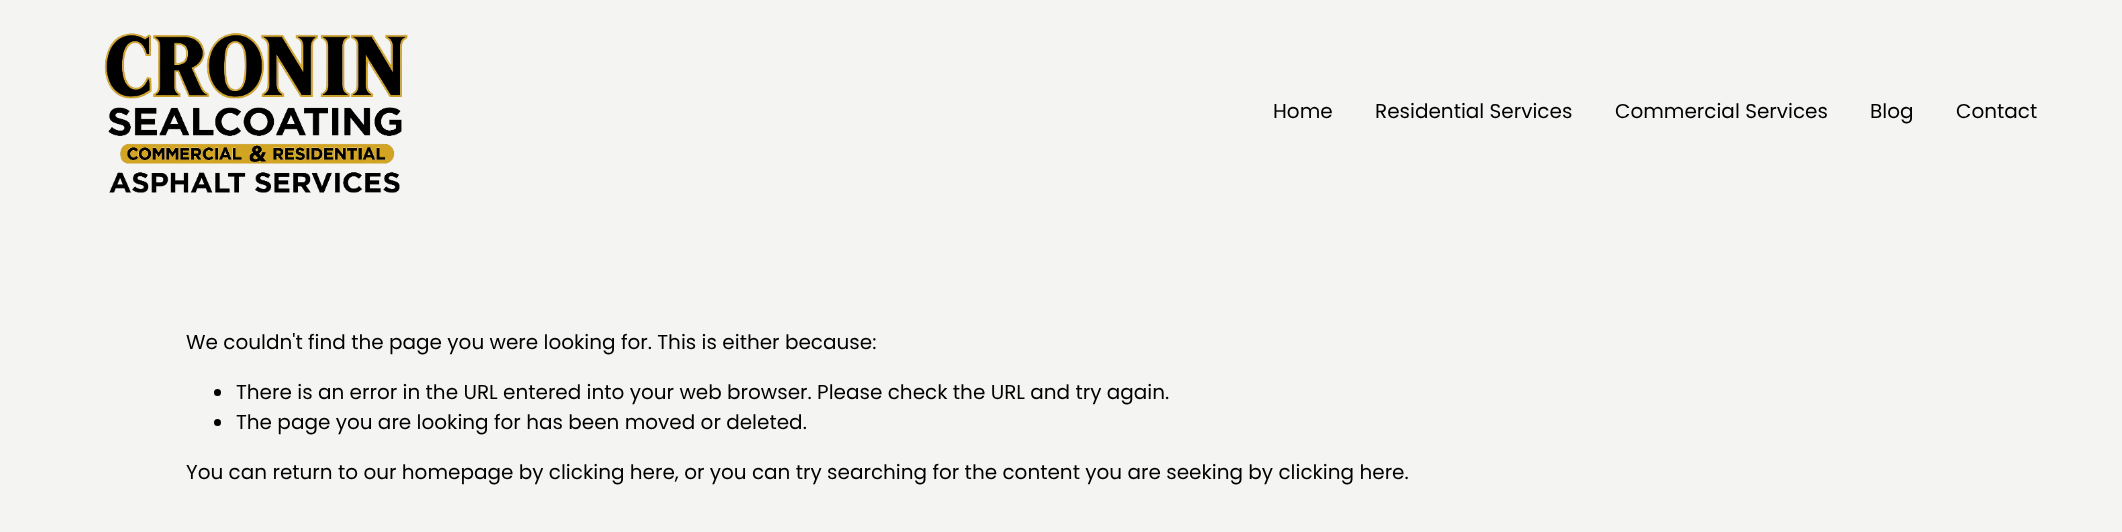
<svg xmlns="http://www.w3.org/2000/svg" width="2122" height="532">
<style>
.a{font:20px Poppins;fill:#000}
</style>
<rect width="100%" height="100%" fill="#f4f4f3"/>
<image href="1.png" x="104" y="33" width="304" height="160"/>
<circle fill="#000" cx="217.5" cy="392.5" r="3.5"/>
<circle fill="#000" cx="217.5" cy="422.5" r="3.5"/>
<text class="a" x="1273" y="118">Home</text>
<text class="a" x="1375" y="118">Residential Services</text>
<text class="a" x="1615" y="118">Commercial Services</text>
<text class="a" x="1870" y="118">Blog</text>
<text class="a" x="1956" y="118">Contact</text>
<text class="a" x="186" y="349">We couldn't find the page you were looking for. This is either because:</text>
<text class="a" x="236" y="399">There is an error in the URL entered into your web browser. Please check the URL and try again.</text>
<text class="a" x="236" y="429">The page you are looking for has been moved or deleted.</text>
<text class="a" x="186" y="479">You can return to our homepage by clicking here, or you can try searching for the content you are seeking by clicking here.</text>
</svg>
